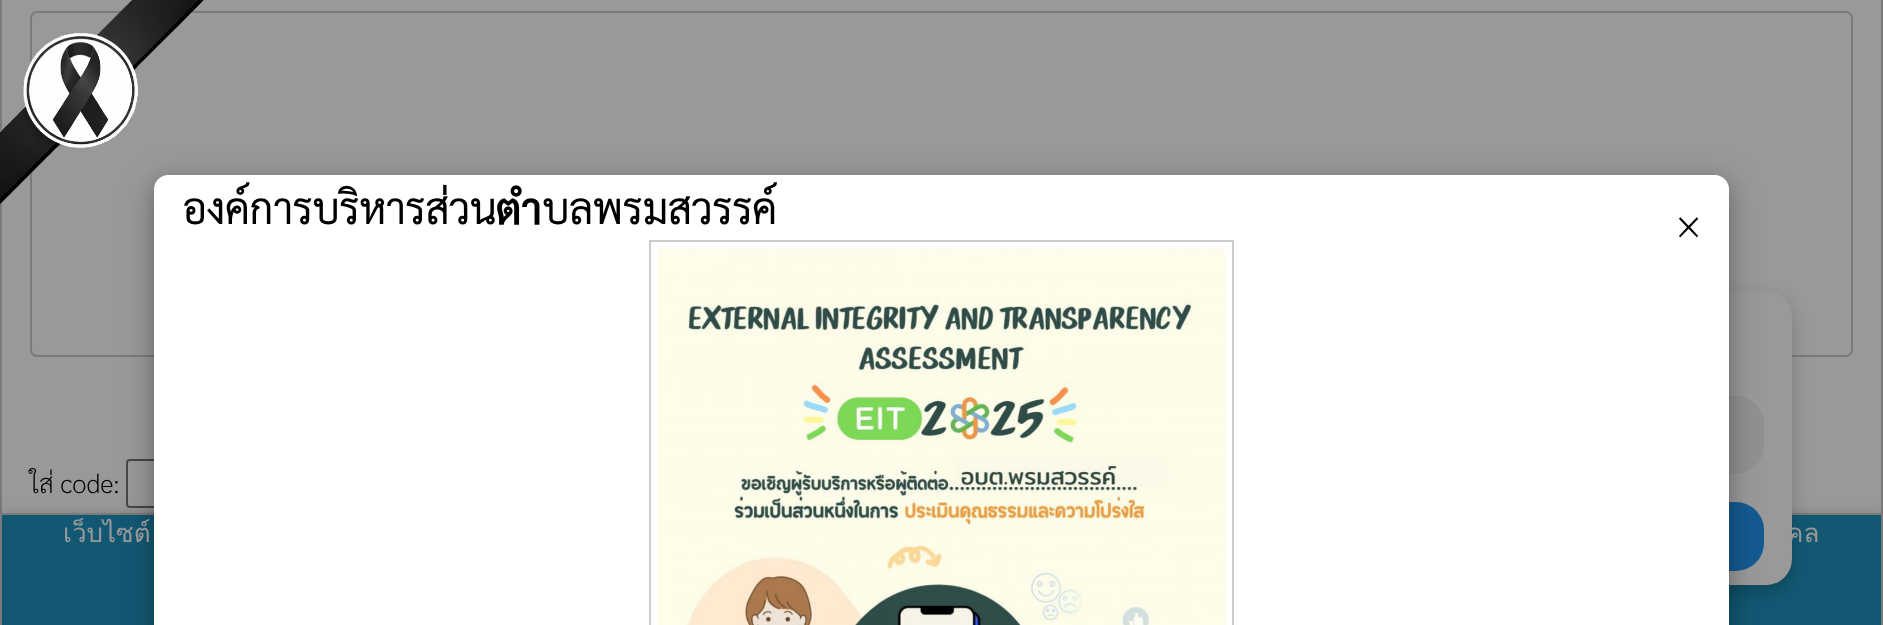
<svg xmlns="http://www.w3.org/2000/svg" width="1883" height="625">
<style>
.a{font:bold 42px Sarabun;fill:#000}
.b{font:200 42px Sarabun;fill:#000}
.c{font:200 26px Sarabun;fill:#000}
.d{font:26px Loma;fill:#999}
</style>
<rect width="100%" height="100%" fill="#999"/>
<path fill="none" stroke="#7a7a7a" stroke-width="2" d="M1 -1h1881v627H1z"/>
<rect fill="none" stroke="#7a7a7a" stroke-width="2" x="31" y="12" width="1821" height="344" rx="6"/>
<rect fill="none" stroke="#474747" stroke-width="2" x="127" y="460" width="129" height="47" rx="3"/>
<path fill="#0000001f" filter="blur(9px)" d="M0 516h1883v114H0z"/>
<path fill="#00000029" filter="blur(4.5px)" d="M0 516h1883v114H0z"/>
<path fill="#135873" stroke="#7a7a7a" stroke-width="2" d="M1 514h1881v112H1z"/>
<rect fill="#00000033" filter="blur(9px)" x="1267" y="298" width="525" height="294" rx="26"/>
<rect fill="#999" x="1267" y="291" width="525" height="294" rx="26"/>
<rect fill="#919191" x="1295" y="396" width="469" height="78" rx="28"/>
<rect fill="#145a92" x="1295" y="502" width="469" height="69" rx="28"/>
<rect fill="#00000030" filter="blur(17.5px)" x="154" y="182" width="1575" height="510" rx="14"/>
<rect fill="#00000033" filter="blur(9px)" x="154" y="182" width="1575" height="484" rx="14"/>
<path fill="#fff" d="M168 175h1547c7.5 0 14 6.5 14 14v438h-1575v-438c0-7.5 6.5-14 14-14z"/>
<path fill="none" stroke="#ccc" stroke-width="2" d="M650 241h583v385H650z"/>
<image href="2.png" x="658" y="248" width="567" height="377"/>
<text class="a" x="182" y="224">องค์การบริหารส่วนตำบลพรมสวรรค์</text>
<image href="1.png" x="0" y="0" width="204" height="204"/>
<text class="b" x="1676" y="238">×</text>
<text class="c" x="30" y="493">ใส่ code:</text>
<text class="d" x="63" y="542" word-spacing="-2">เว็บไซต์</text>
<text class="d" x="1786" y="542" word-spacing="-2">คล</text>
</svg>
